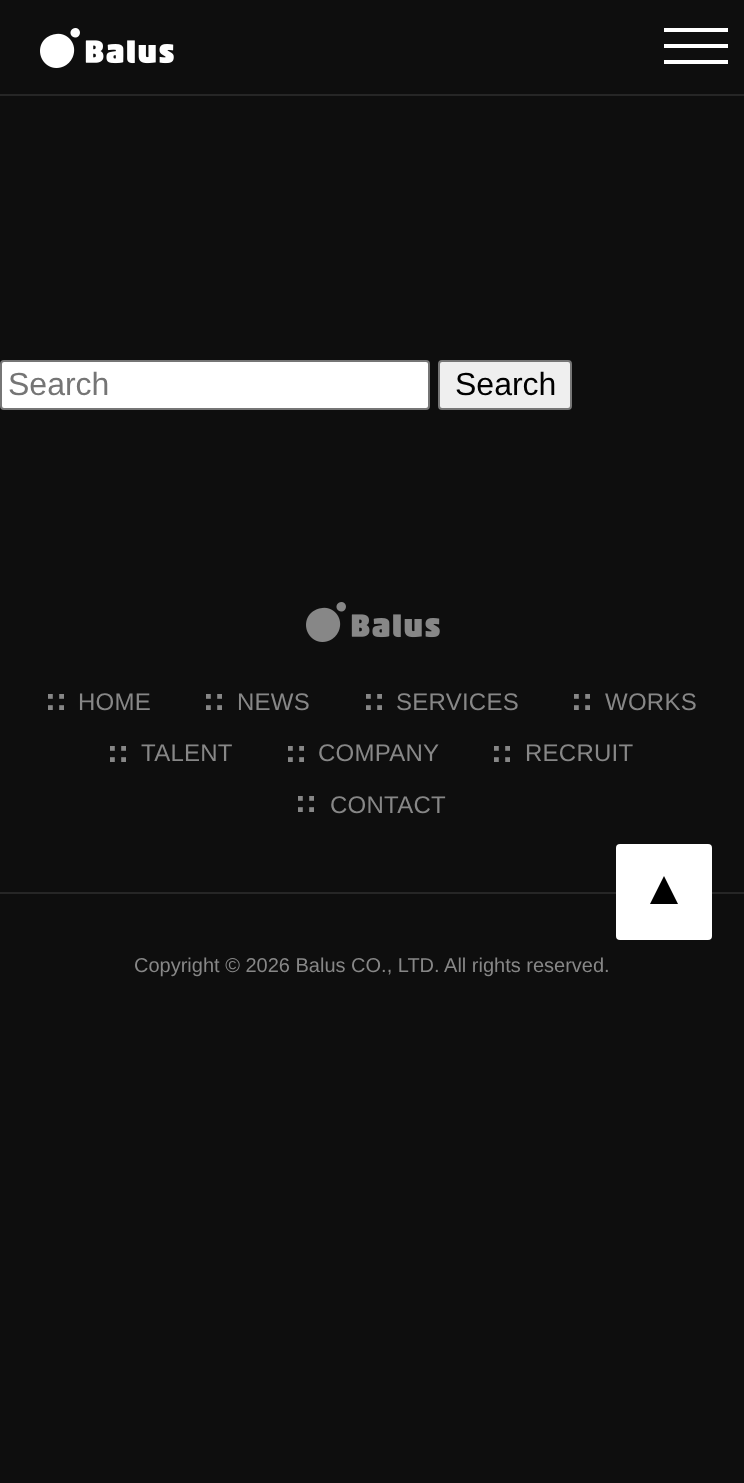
<svg xmlns="http://www.w3.org/2000/svg" width="744" height="1483">
<style>
.a{font:32px Liberation Sans;fill:#757575}
.b{font:32px Liberation Sans;fill:#000}
.c{font:24px Liberation Sans;letter-spacing:0.25px;fill:#878787}
.d{font:20px Liberation Sans;fill:#878787}
</style>
<rect width="100%" height="100%" fill="#0e0e0e"/>
<path fill="#262626" d="M0 94h744v2H0z"/>
<image href="1.png" x="40" y="28" width="134" height="40"/>
<path fill="#fff" d="M664 28h64v4H664z"/>
<path fill="#fff" d="M664 44h64v4H664z"/>
<path fill="#fff" d="M664 60h64v4H664z"/>
<rect fill="#fff" stroke="#767676" stroke-width="2" x="1" y="361" width="428" height="48" rx="3"/>
<rect fill="#efefef" stroke="#767676" stroke-width="2" x="439" y="361" width="132" height="48" rx="3"/>
<image href="2.png" x="306" y="602" width="134" height="40"/>
<image href="3.png" x="48" y="694" width="16" height="16"/>
<image href="3.png" x="206" y="694" width="16" height="16"/>
<image href="3.png" x="366" y="694" width="16" height="16"/>
<image href="3.png" x="574" y="694" width="16" height="16"/>
<image href="3.png" x="110" y="746" width="16" height="16"/>
<image href="3.png" x="288" y="746" width="16" height="16"/>
<image href="3.png" x="494" y="746" width="16" height="16"/>
<image href="3.png" x="298" y="796" width="16" height="16"/>
<path fill="#262626" d="M0 892h744v2H0z"/>
<rect fill="#fff" x="616" y="844" width="96" height="96" rx="4"/>
<path fill="#000" d="M678 904h-28l14-28z"/>
<text class="a" x="8" y="395">Search</text>
<text class="b" x="455" y="395">Search</text>
<text class="c" x="78" y="710">HOME</text>
<text class="c" x="237" y="710">NEWS</text>
<text class="c" x="396" y="710">SERVICES</text>
<text class="c" x="605" y="710">WORKS</text>
<text class="c" x="141" y="761">TALENT</text>
<text class="c" x="318" y="761">COMPANY</text>
<text class="c" x="525" y="761">RECRUIT</text>
<text class="c" x="330" y="813">CONTACT</text>
<text class="d" x="134" y="972">Copyright © 2026 Balus CO., LTD. All rights reserved.</text>
</svg>
